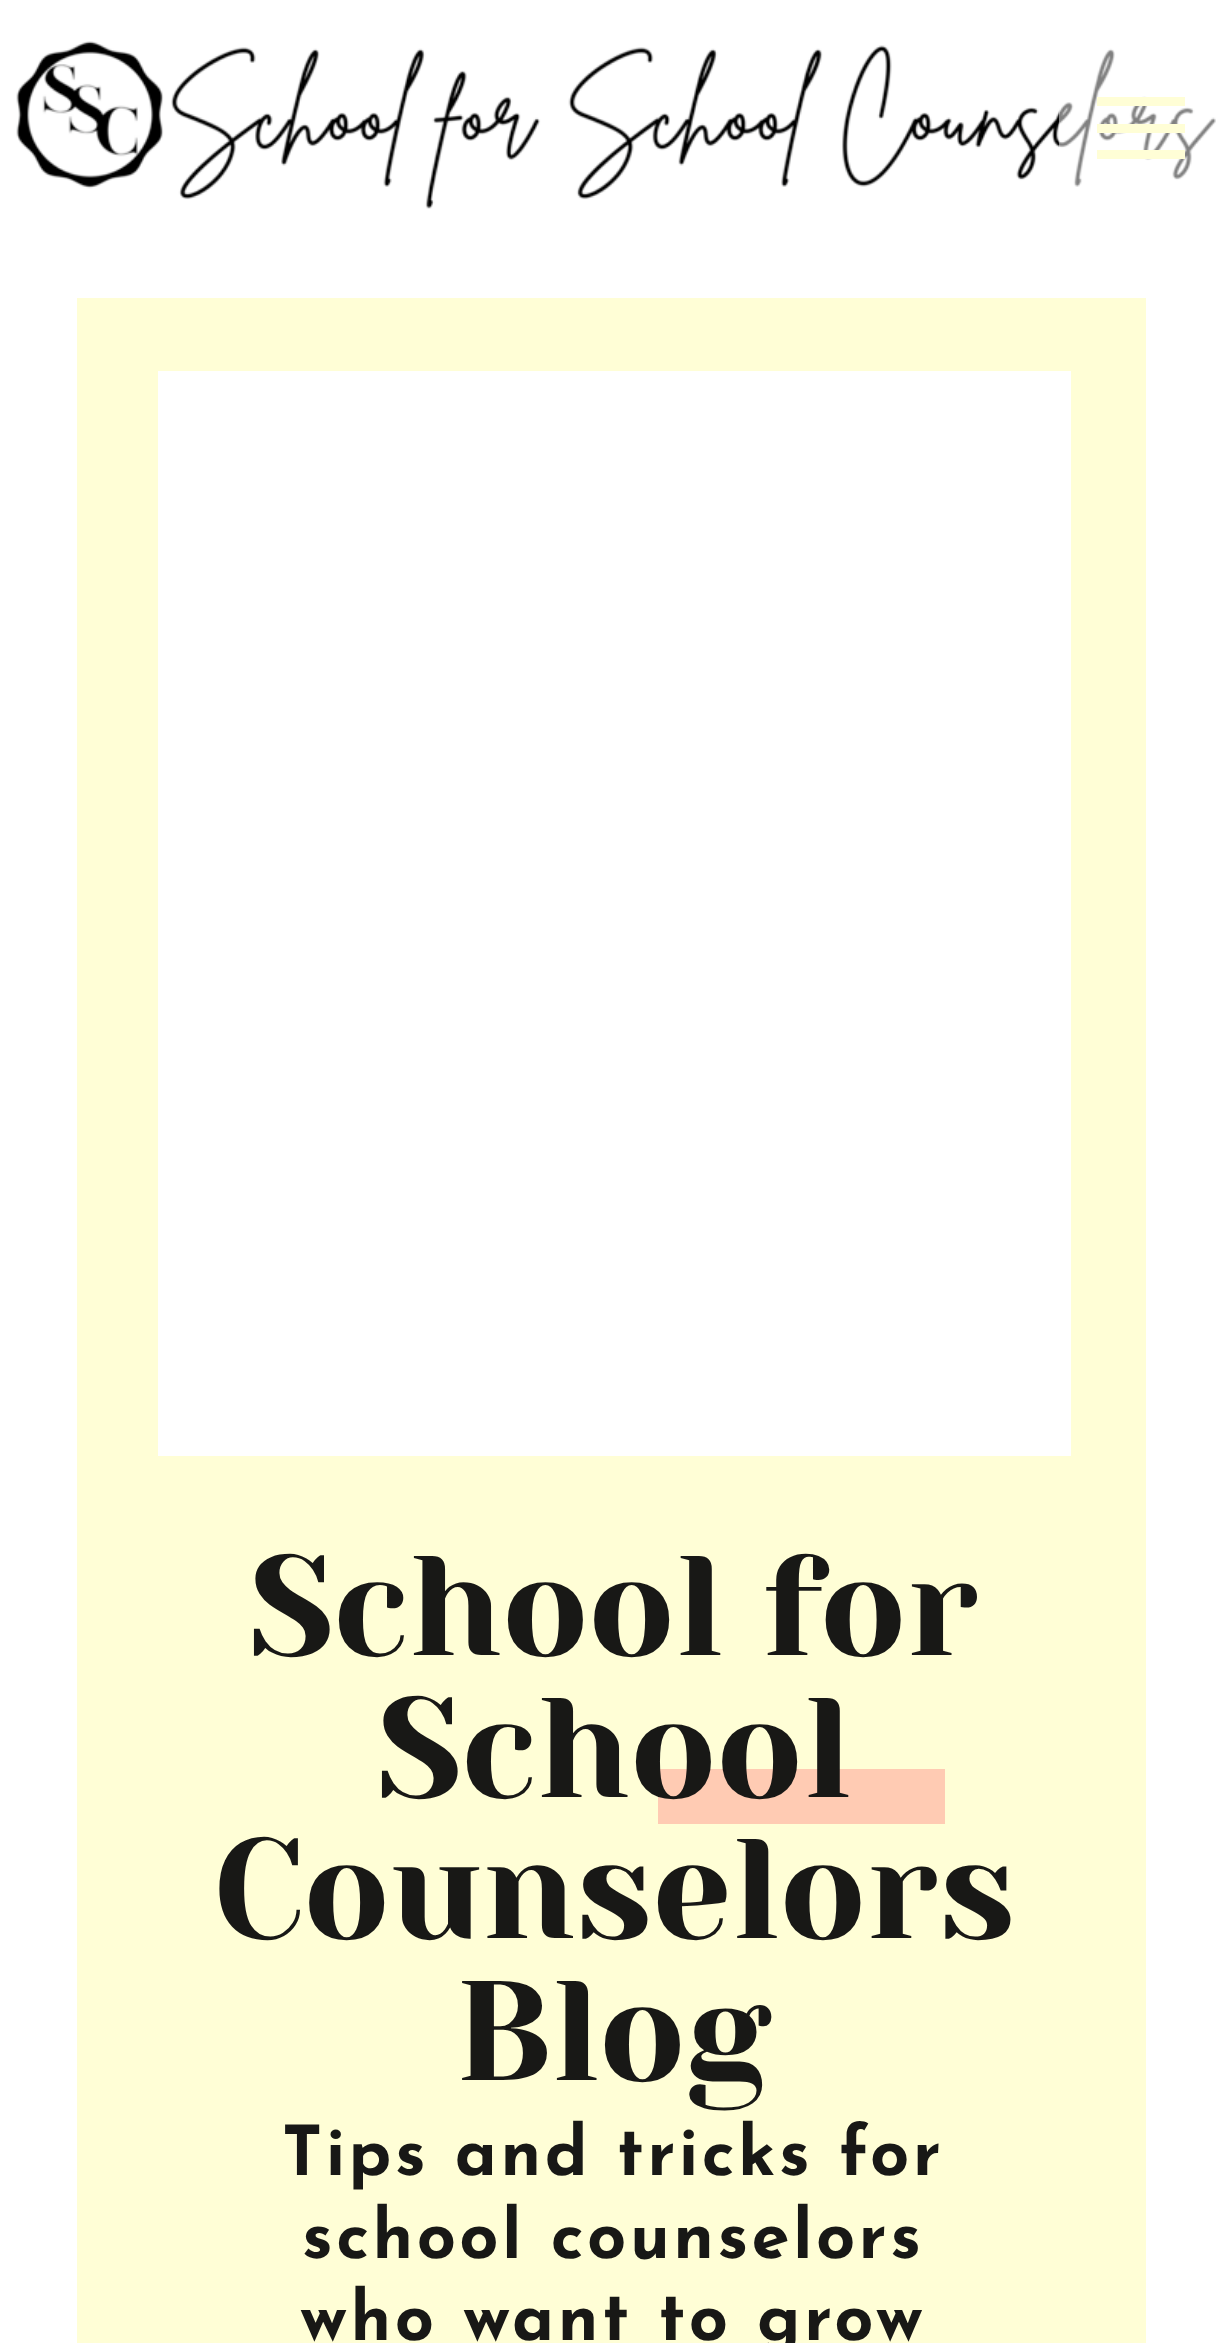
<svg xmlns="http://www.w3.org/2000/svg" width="1223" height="2343">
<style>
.a{font:141.5px Yeseva One;fill:#181816}
.b{font:bold 68.75px Josefin Sans;letter-spacing:3.4px;fill:#181816}
</style>
<rect width="100%" height="100%" fill="#fff"/>
<image href="1.png" x="16" y="41" width="1200" height="168"/>
<path fill="#ffffff80" d="M1059 48h157v139H1059z"/>
<path fill="#fffed6" d="M1097 124h88v9h-88zm0-27h88v9h-88zm0 53h88v9h-88z"/>
<path fill="#fffed6" d="M77 298h1069v2045H77z"/>
<path fill="#fff" d="M158 371h913v1085H158z"/>
<path fill="#ffcbb3" d="M658 1769h287v55H658z"/>
<text class="a" x="249" y="1655">School for</text>
<text class="a" x="377" y="1797">School</text>
<text class="a" x="213" y="1938">Counselors</text>
<text class="a" x="455" y="2080">Blog</text>
<text class="b" x="282" y="2175">Tips and tricks for</text>
<text class="b" x="302" y="2258">school counselors</text>
<text class="b" x="300" y="2340">who want to grow</text>
</svg>
